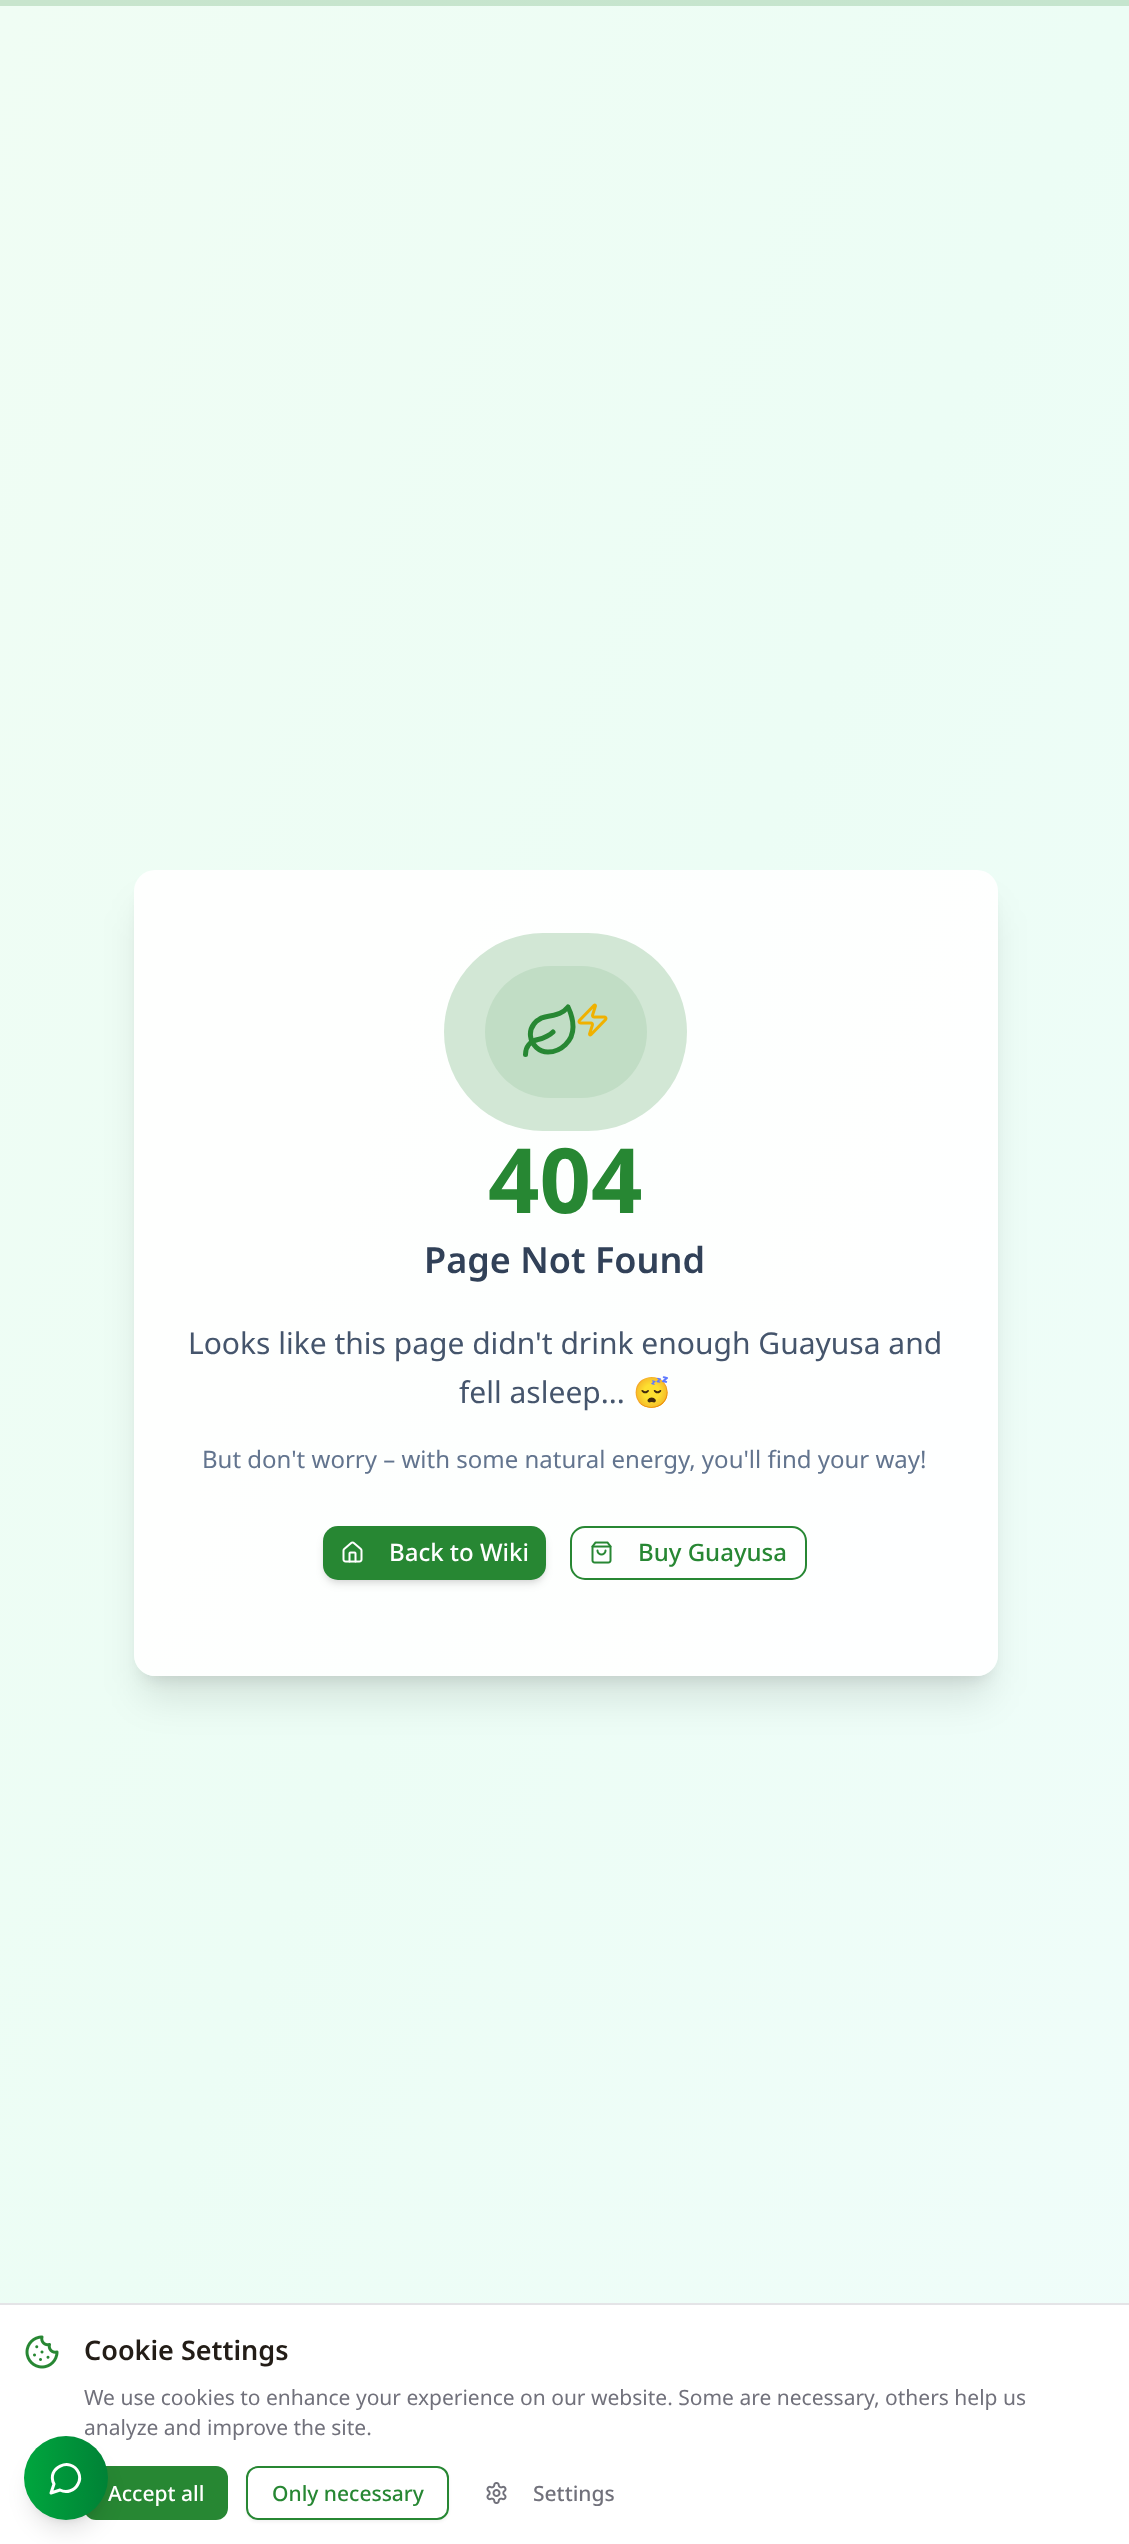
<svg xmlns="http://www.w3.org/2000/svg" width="1129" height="2544">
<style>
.a{font:bold 90px Noto Sans;fill:#278733}
.b{font:600 36px Noto Sans;fill:#314158}
.c{font:30px Noto Sans;fill:#45556c}
.d{font:30px Noto Color Emoji;fill:#45556c}
.e{font:24px Noto Sans;fill:#62748e}
.f{font:500 24px Noto Sans;fill:#fff}
.g{font:500 24px Noto Sans;fill:#278733}
.h{font:600 27px Noto Sans;fill:#231d17}
.i{font:21px Noto Sans;fill:#71717b}
.j{font:500 21px Noto Sans;fill:#fff}
.k{font:500 21px Noto Sans;fill:#278733}
.l{font:500 21px Noto Sans;fill:#71717b}
</style>
<defs>
<linearGradient id="g1" gradientUnits="userSpaceOnUse" x1="-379" y1="853" x2="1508" y2="1691"><stop offset="0" stop-color="#f0fdf4"/><stop offset="0.5" stop-color="#ecfdf5"/><stop offset="1" stop-color="#f0fdfa"/></linearGradient>
<linearGradient id="g2" gradientUnits="userSpaceOnUse" x1="-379" y1="853" x2="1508" y2="1691"><stop offset="0" stop-color="#c8e5cd"/><stop offset="0.5" stop-color="#c5e5ce"/><stop offset="1" stop-color="#c8e5d2"/></linearGradient>
<clipPath id="clip1"><path d="M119 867h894v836h-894zm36 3h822c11.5 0 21 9.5 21 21v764c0 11.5-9.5 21-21 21h-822c-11.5 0-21-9.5-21-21v-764c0-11.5 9.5-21 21-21z" clip-rule="evenodd"/></clipPath>
<clipPath id="clip2"><path d="M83 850h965v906h-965zm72 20h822c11.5 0 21 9.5 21 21v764c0 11.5-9.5 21-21 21h-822c-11.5 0-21-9.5-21-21v-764c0-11.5 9.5-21 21-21z" clip-rule="evenodd"/></clipPath>
<clipPath id="clip3"><path d="M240 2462h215v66h-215zm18 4h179c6.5 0 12 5.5 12 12v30c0 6.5-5.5 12-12 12h-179c-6.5 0-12-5.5-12-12v-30c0-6.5 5.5-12 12-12z" clip-rule="evenodd"/></clipPath>
<linearGradient id="g3" gradientUnits="userSpaceOnUse" x1="24" y1="2478" x2="108" y2="2478"><stop offset="0" stop-color="#00a63e"/><stop offset="1" stop-color="#008236"/></linearGradient>
</defs>
<rect width="100%" height="100%" fill="#fff"/>
<path fill="url(#g1)" d="M0 6h1129v2297H0z"/>
<path fill="url(#g2)" d="M0 0h1129v6H0z"/>
<g clip-path="url(#clip1)">
<rect fill="#0000001a" filter="blur(7.5px)" x="143" y="891" width="846" height="788" rx="12"/>
</g>
<g clip-path="url(#clip2)">
<rect fill="#0000001a" filter="blur(19px)" x="141" y="908" width="849" height="790" rx="14"/>
</g>
<rect fill="#ffffffe6" x="134" y="870" width="864" height="806" rx="21"/>
<rect fill="#d2e7d5" x="444" y="933" width="243" height="198" rx="99"/>
<rect fill="#c1ddc5" x="485" y="966" width="162" height="132" rx="66"/>
<path fill="none" stroke="#278733" stroke-width="5" stroke-linecap="round" stroke-linejoin="round" d="M548 1052c-9 0-16.5-7-17.5-16c-1-9 5.5-17 14.5-19c14-2.5 18-4 23-10c2.5 5 5 10.5 5 20c0 14-12 25-25 25zm-22.5 2.5c0-7.5 4.5-13.5 12.5-15c6-1 12.5-5 15-7.5"/>
<image href="1.png" x="577" y="1003" width="31" height="34"/>
<rect fill="#0000001a" filter="blur(3px)" x="326" y="1532" width="217" height="48" rx="12"/>
<rect fill="#0000001a" filter="blur(4.5px)" x="324" y="1533" width="221" height="51" rx="14"/>
<rect fill="#278733" x="323" y="1526" width="223" height="54" rx="15"/>
<image href="2.png" x="342" y="1541" width="21" height="22"/>
<rect fill="none" stroke="#278733" stroke-width="2" x="571" y="1527" width="235" height="52" rx="14"/>
<image href="3.png" x="591" y="1541" width="21" height="23"/>
<rect fill="#278733" x="84" y="2466" width="144" height="54" rx="12"/>
<rect fill="#0000001a" filter="blur(4.5px)" x="30" y="2448" width="72" height="72" rx="36"/>
<rect fill="#0000001a" filter="blur(11px)" x="29" y="2456" width="75" height="75" rx="37.5"/>
<path fill="#e4e4e7" d="M0 2303h1129v2H0z"/>
<image href="4.png" x="25" y="2335" width="34" height="34"/>
<g clip-path="url(#clip3)">
<rect fill="#0000000d" filter="blur(1.5px)" x="246" y="2468" width="203" height="54" rx="12"/>
</g>
<rect fill="none" stroke="#278733" stroke-width="2" x="247" y="2467" width="201" height="52" rx="11"/>
<image href="5.png" x="486" y="2482" width="21" height="22"/>
<text class="a" x="488" y="1213">404</text>
<text class="b" x="424" y="1273">Page Not Found</text>
<text class="c" x="188" y="1354">Looks like this page didn't drink enough Guayusa and</text>
<text class="c" x="459" y="1403">fell asleep...</text>
<text class="d" x="633" y="1403">😴</text>
<text class="e" x="202" y="1468">But don't worry – with some natural energy, you'll find your way!</text>
<text class="f" x="389" y="1561">Back to Wiki</text>
<text class="g" x="638" y="1561">Buy Guayusa</text>
<text class="h" x="84" y="2360">Cookie Settings</text>
<text class="i" x="84" y="2405">We use cookies to enhance your experience on our website. Some are necessary, others help us</text>
<text class="i" x="84" y="2435">analyze and improve the site.</text>
<circle fill="url(#g3)" cx="66" cy="2478" r="42"/>
<path fill="none" stroke="#fff" stroke-width="3" stroke-linecap="round" stroke-linejoin="round" d="M60 2490c6.5 3.5 15 .5 18-6c2-3.5 2-8 .5-11.5c-7.5-16.5-33-4.5-24.5 11.5l-3 9z"/>
<text class="j" x="108" y="2501">Accept all</text>
<text class="k" x="272" y="2501">Only necessary</text>
<text class="l" x="533" y="2501">Settings</text>
</svg>
